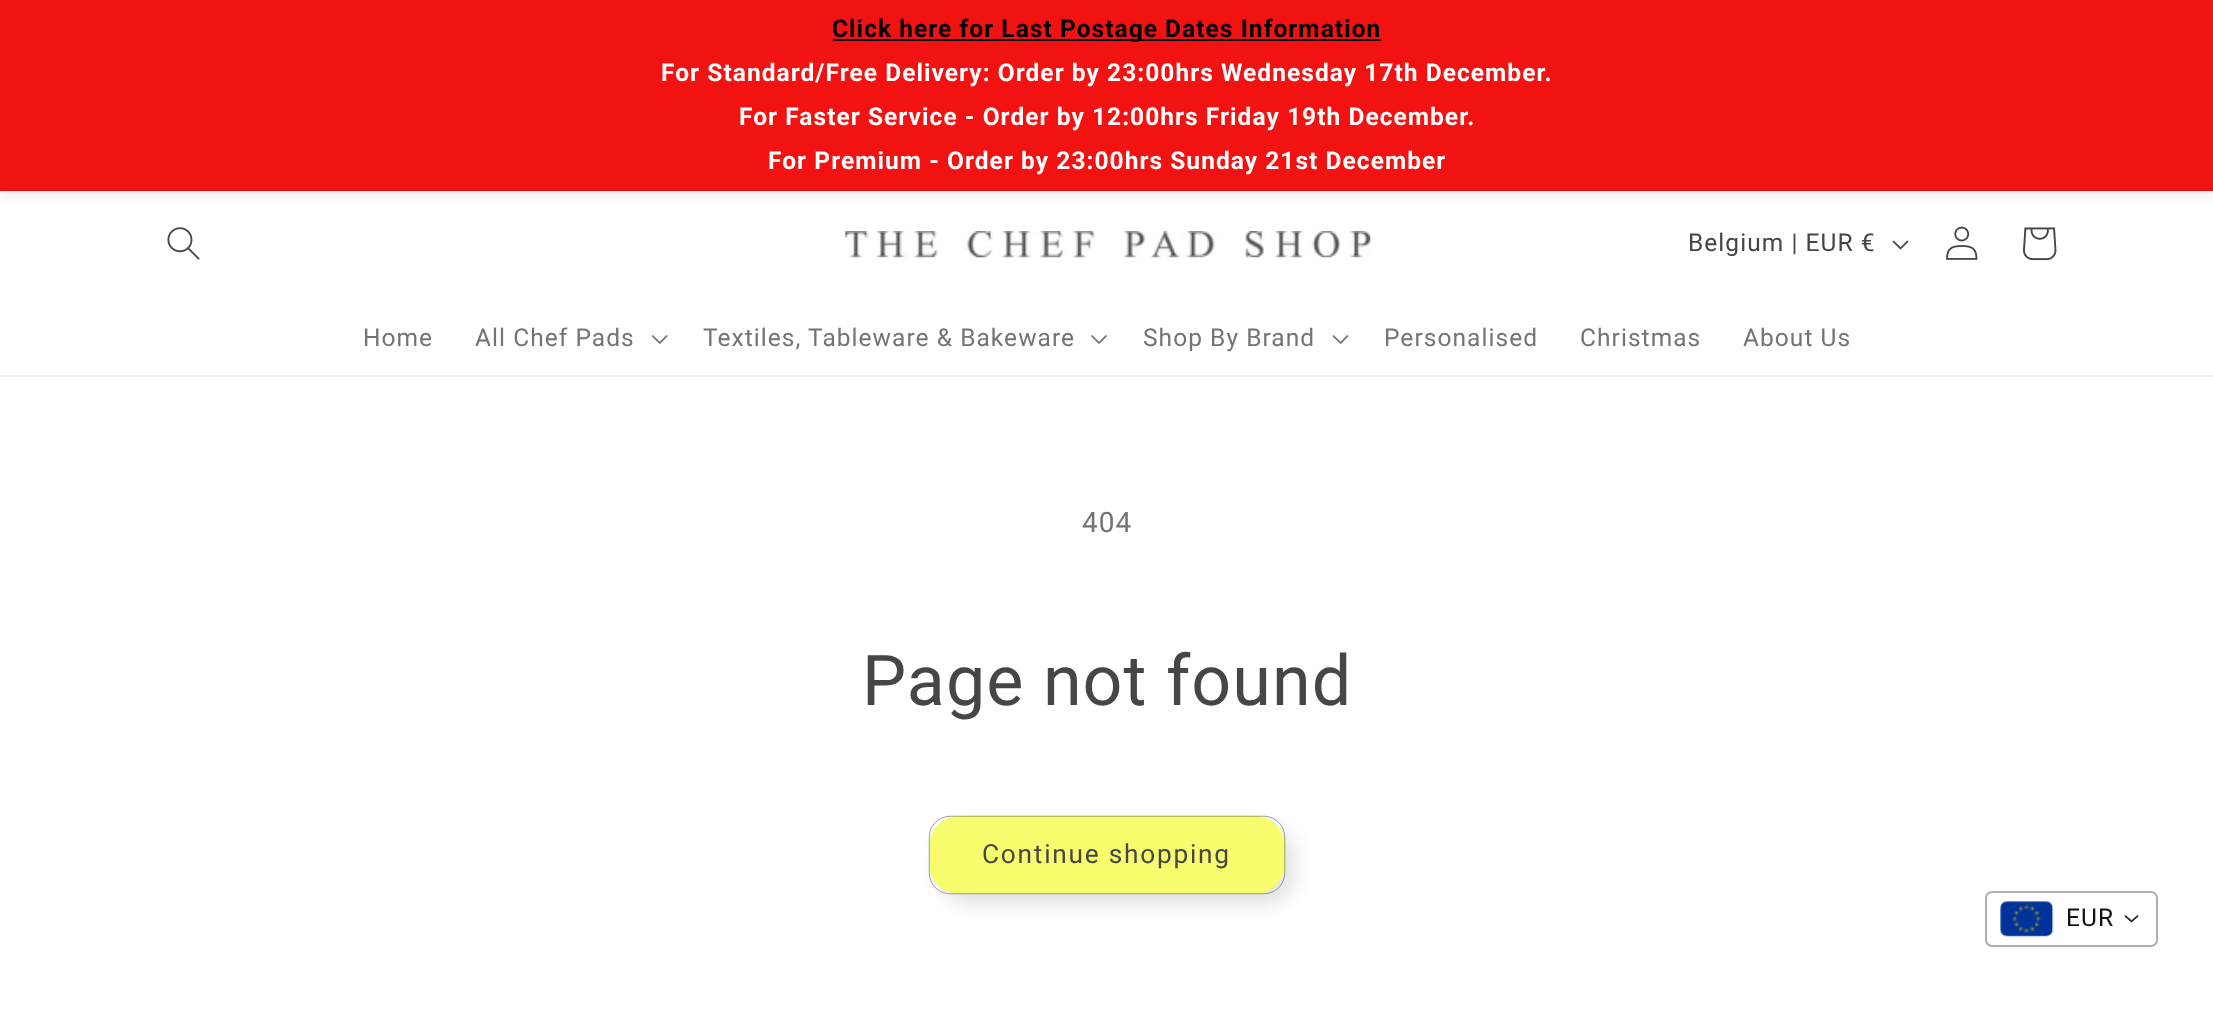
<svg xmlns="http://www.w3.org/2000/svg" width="2213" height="1009">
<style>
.a{font:bold 24.5px Roboto;letter-spacing:1.05px;fill:#000}
.b{font:bold 24.5px Roboto;letter-spacing:1.05px;fill:#fff}
.c{font:24.5px Roboto;letter-spacing:1.05px;fill:#464646}
.d{font:24.5px Roboto;letter-spacing:1.05px;fill:#747474}
.e{font:28px Roboto;letter-spacing:1.05px;fill:#747474}
.f{font:70px Roboto;letter-spacing:1.05px;fill:#464646}
.g{font:26.25px Roboto;letter-spacing:1.75px;fill:#464646}
.h{font:24.5px Roboto;letter-spacing:1.05px;fill:#111}
</style>
<rect width="100%" height="100%" fill="#fff"/>
<path fill="#0000001c" filter="blur(8px)" d="M-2 -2h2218v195H-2z"/>
<path fill="#f21212" d="M0 0h2213v191H0z"/>
<path fill="#000" d="M833 39h548v2H833z"/>
<path fill="#f0f0f0" d="M0 375h2213v2H0z"/>
<image href="1.png" x="167" y="227" width="33" height="33"/>
<image href="2.png" x="845" y="231" width="526" height="27"/>
<image href="3.png" x="1892" y="240" width="17" height="10"/>
<image href="4.png" x="1946" y="226" width="32" height="34"/>
<image href="5.png" x="2023" y="227" width="34" height="34"/>
<image href="6.png" x="652" y="335" width="16" height="9"/>
<image href="7.png" x="1091" y="335" width="16" height="9"/>
<image href="8.png" x="1332" y="335" width="17" height="9"/>
<rect fill="#46464626" filter="blur(9px)" x="940" y="826" width="355" height="79" rx="30"/>
<rect fill="#f8fd6e" x="929" y="816" width="356" height="78" rx="30"/>
<rect fill="none" stroke="#464646" stroke-width="0.5" x="929.25" y="816.25" width="355.5" height="77.5" rx="20.75"/>
<rect fill="none" stroke="#aeaeae" stroke-width="2" x="1986" y="892" width="171" height="54" rx="6"/>
<image href="9.png" x="2000" y="901" width="54" height="36"/>
<image href="10.png" x="2124" y="915" width="15" height="8"/>
<text class="a" x="832" y="37">Click here for Last Postage Dates Information</text>
<text class="b" x="661" y="81">For Standard/Free Delivery: Order by 23:00hrs Wednesday 17th December.</text>
<text class="b" x="739" y="125">For Faster Service - Order by 12:00hrs Friday 19th December.</text>
<text class="b" x="768" y="169">For Premium - Order by 23:00hrs Sunday 21st December</text>
<text class="c" x="1688" y="251">Belgium | EUR €</text>
<text class="d" x="363" y="346">Home</text>
<text class="d" x="475" y="346">All Chef Pads</text>
<text class="d" x="703" y="346">Textiles, Tableware &amp; Bakeware</text>
<text class="d" x="1143" y="346">Shop By Brand</text>
<text class="d" x="1384" y="346">Personalised</text>
<text class="d" x="1580" y="346">Christmas</text>
<text class="d" x="1743" y="346">About Us</text>
<text class="e" x="1082" y="532">404</text>
<text class="f" x="862" y="705">Page not found</text>
<text class="g" x="982" y="863">Continue shopping</text>
<text class="h" x="2066" y="926">EUR</text>
</svg>
